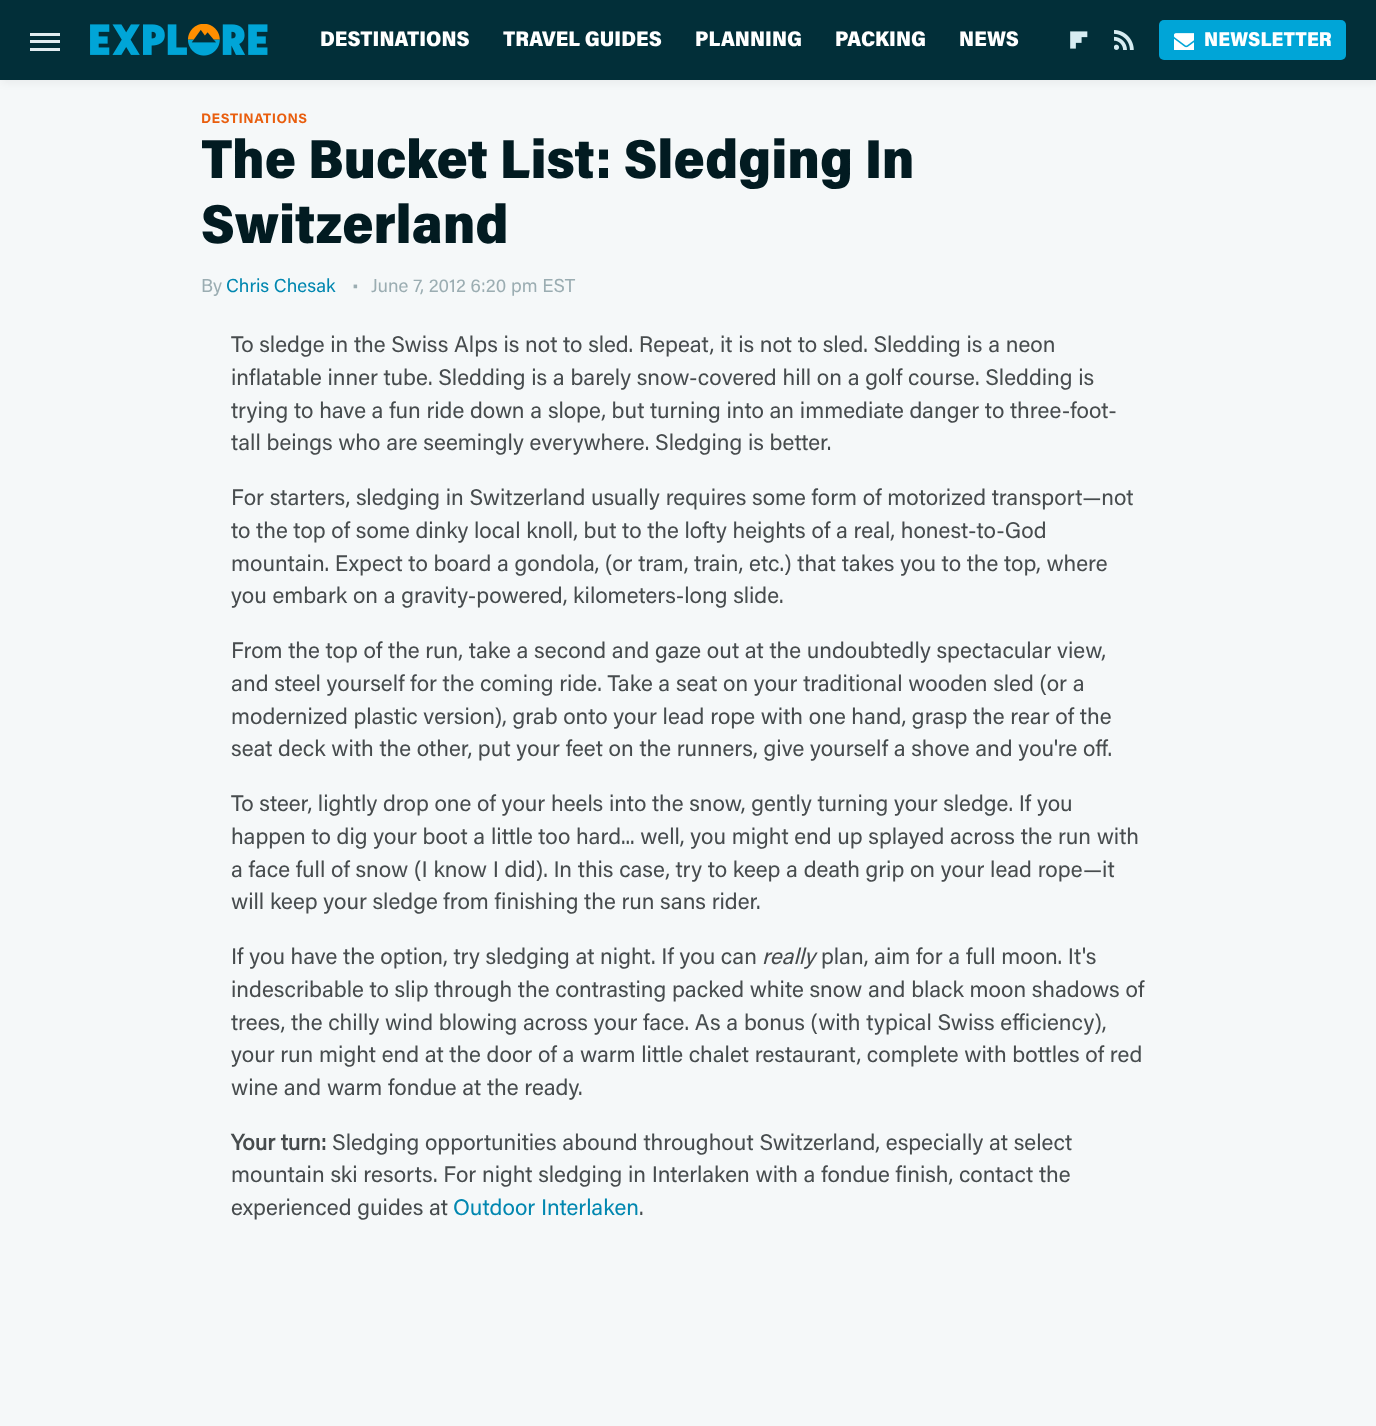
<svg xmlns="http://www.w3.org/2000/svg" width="1376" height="1426">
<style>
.a{font:900 21.25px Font;fill:#fff}
.b{font:900 20px Font;fill:#fff}
.c{font:bold 13.75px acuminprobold;letter-spacing:0.5px;fill:#e95e0e}
.d{font:900 55px Font;fill:#021b21}
.e{font:18.75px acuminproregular;fill:#9badb2}
.f{font:18.75px acuminproregular;fill:#0187b0}
.g{font:18px acuminproregular;fill:#9badb2}
.h{font:22.5px acuminproregular;fill:#474c4e}
.i{font:italic 22.5px acuminproregular;fill:#474c4e}
.j{font:bold 22.5px acuminproregular;fill:#474c4e}
.k{font:22.5px acuminproregular;fill:#0187b0}
</style>
<rect width="100%" height="100%" fill="#f5f8f9"/>
<path fill="#0000000d" filter="blur(4px)" d="M1 3h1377v80H1z"/>
<path fill="#022f39" d="M0 0h1376v80H0z"/>
<path fill="#e2edf1" d="M30 33h30v3H30z"/>
<path fill="#e2edf1" d="M30 40h30v3H30z"/>
<path fill="#e2edf1" d="M30 48h30v3H30z"/>
<image href="1.png" x="90" y="24" width="178" height="32"/>
<image href="2.png" x="1070" y="31" width="18" height="18"/>
<image href="3.png" x="1114" y="30" width="20" height="20"/>
<rect fill="#00a5d7" x="1159" y="20" width="187" height="40" rx="5"/>
<image href="4.png" x="1174" y="33" width="20" height="17"/>
<text class="a" x="320" y="46">DESTINATIONS</text>
<text class="a" x="503" y="46">TRAVEL GUIDES</text>
<text class="a" x="695" y="46">PLANNING</text>
<text class="a" x="835" y="46">PACKING</text>
<text class="a" x="959" y="46">NEWS</text>
<text class="b" x="1204" y="46">NEWSLETTER</text>
<text class="c" x="201" y="123">DESTINATIONS</text>
<text class="d" x="201" y="178">The Bucket List: Sledging In</text>
<text class="d" x="201" y="243">Switzerland</text>
<text class="e" x="201" y="292">By</text>
<text class="f" x="226" y="292">Chris Chesak</text>
<text class="g" x="352" y="291">•</text>
<text class="e" x="371" y="292">June 7, 2012 6:20 pm EST</text>
<text class="h" x="231" y="352">To sledge in the Swiss Alps is not to sled. Repeat, it is not to sled. Sledding is a neon</text>
<text class="h" x="231" y="385">inflatable inner tube. Sledding is a barely snow-covered hill on a golf course. Sledding is</text>
<text class="h" x="231" y="418">trying to have a fun ride down a slope, but turning into an immediate danger to three-foot-</text>
<text class="h" x="231" y="450">tall beings who are seemingly everywhere. Sledging is better.</text>
<text class="h" x="231" y="505">For starters, sledging in Switzerland usually requires some form of motorized transport—not</text>
<text class="h" x="231" y="538">to the top of some dinky local knoll, but to the lofty heights of a real, honest-to-God</text>
<text class="h" x="231" y="571">mountain. Expect to board a gondola, (or tram, train, etc.) that takes you to the top, where</text>
<text class="h" x="231" y="603">you embark on a gravity-powered, kilometers-long slide.</text>
<text class="h" x="231" y="658">From the top of the run, take a second and gaze out at the undoubtedly spectacular view,</text>
<text class="h" x="231" y="691">and steel yourself for the coming ride. Take a seat on your traditional wooden sled (or a</text>
<text class="h" x="231" y="724">modernized plastic version), grab onto your lead rope with one hand, grasp the rear of the</text>
<text class="h" x="231" y="756">seat deck with the other, put your feet on the runners, give yourself a shove and you're off.</text>
<text class="h" x="231" y="811">To steer, lightly drop one of your heels into the snow, gently turning your sledge. If you</text>
<text class="h" x="231" y="844">happen to dig your boot a little too hard... well, you might end up splayed across the run with</text>
<text class="h" x="231" y="877">a face full of snow (I know I did). In this case, try to keep a death grip on your lead rope—it</text>
<text class="h" x="231" y="909">will keep your sledge from finishing the run sans rider.</text>
<text class="h" x="231" y="964">If you have the option, try sledging at night. If you can</text>
<text class="i" x="762" y="964">really</text>
<text class="h" x="821" y="964">plan, aim for a full moon. It's</text>
<text class="h" x="231" y="997">indescribable to slip through the contrasting packed white snow and black moon shadows of</text>
<text class="h" x="231" y="1030">trees, the chilly wind blowing across your face. As a bonus (with typical Swiss efficiency),</text>
<text class="h" x="231" y="1062">your run might end at the door of a warm little chalet restaurant, complete with bottles of red</text>
<text class="h" x="231" y="1095">wine and warm fondue at the ready.</text>
<text class="j" x="231" y="1150">Your turn:</text>
<text class="h" x="332" y="1150">Sledging opportunities abound throughout Switzerland, especially at select</text>
<text class="h" x="231" y="1182">mountain ski resorts. For night sledging in Interlaken with a fondue finish, contact the</text>
<text class="h" x="231" y="1215">experienced guides at</text>
<text class="k" x="453" y="1215">Outdoor Interlaken</text>
<text class="h" x="639" y="1215">.</text>
</svg>
